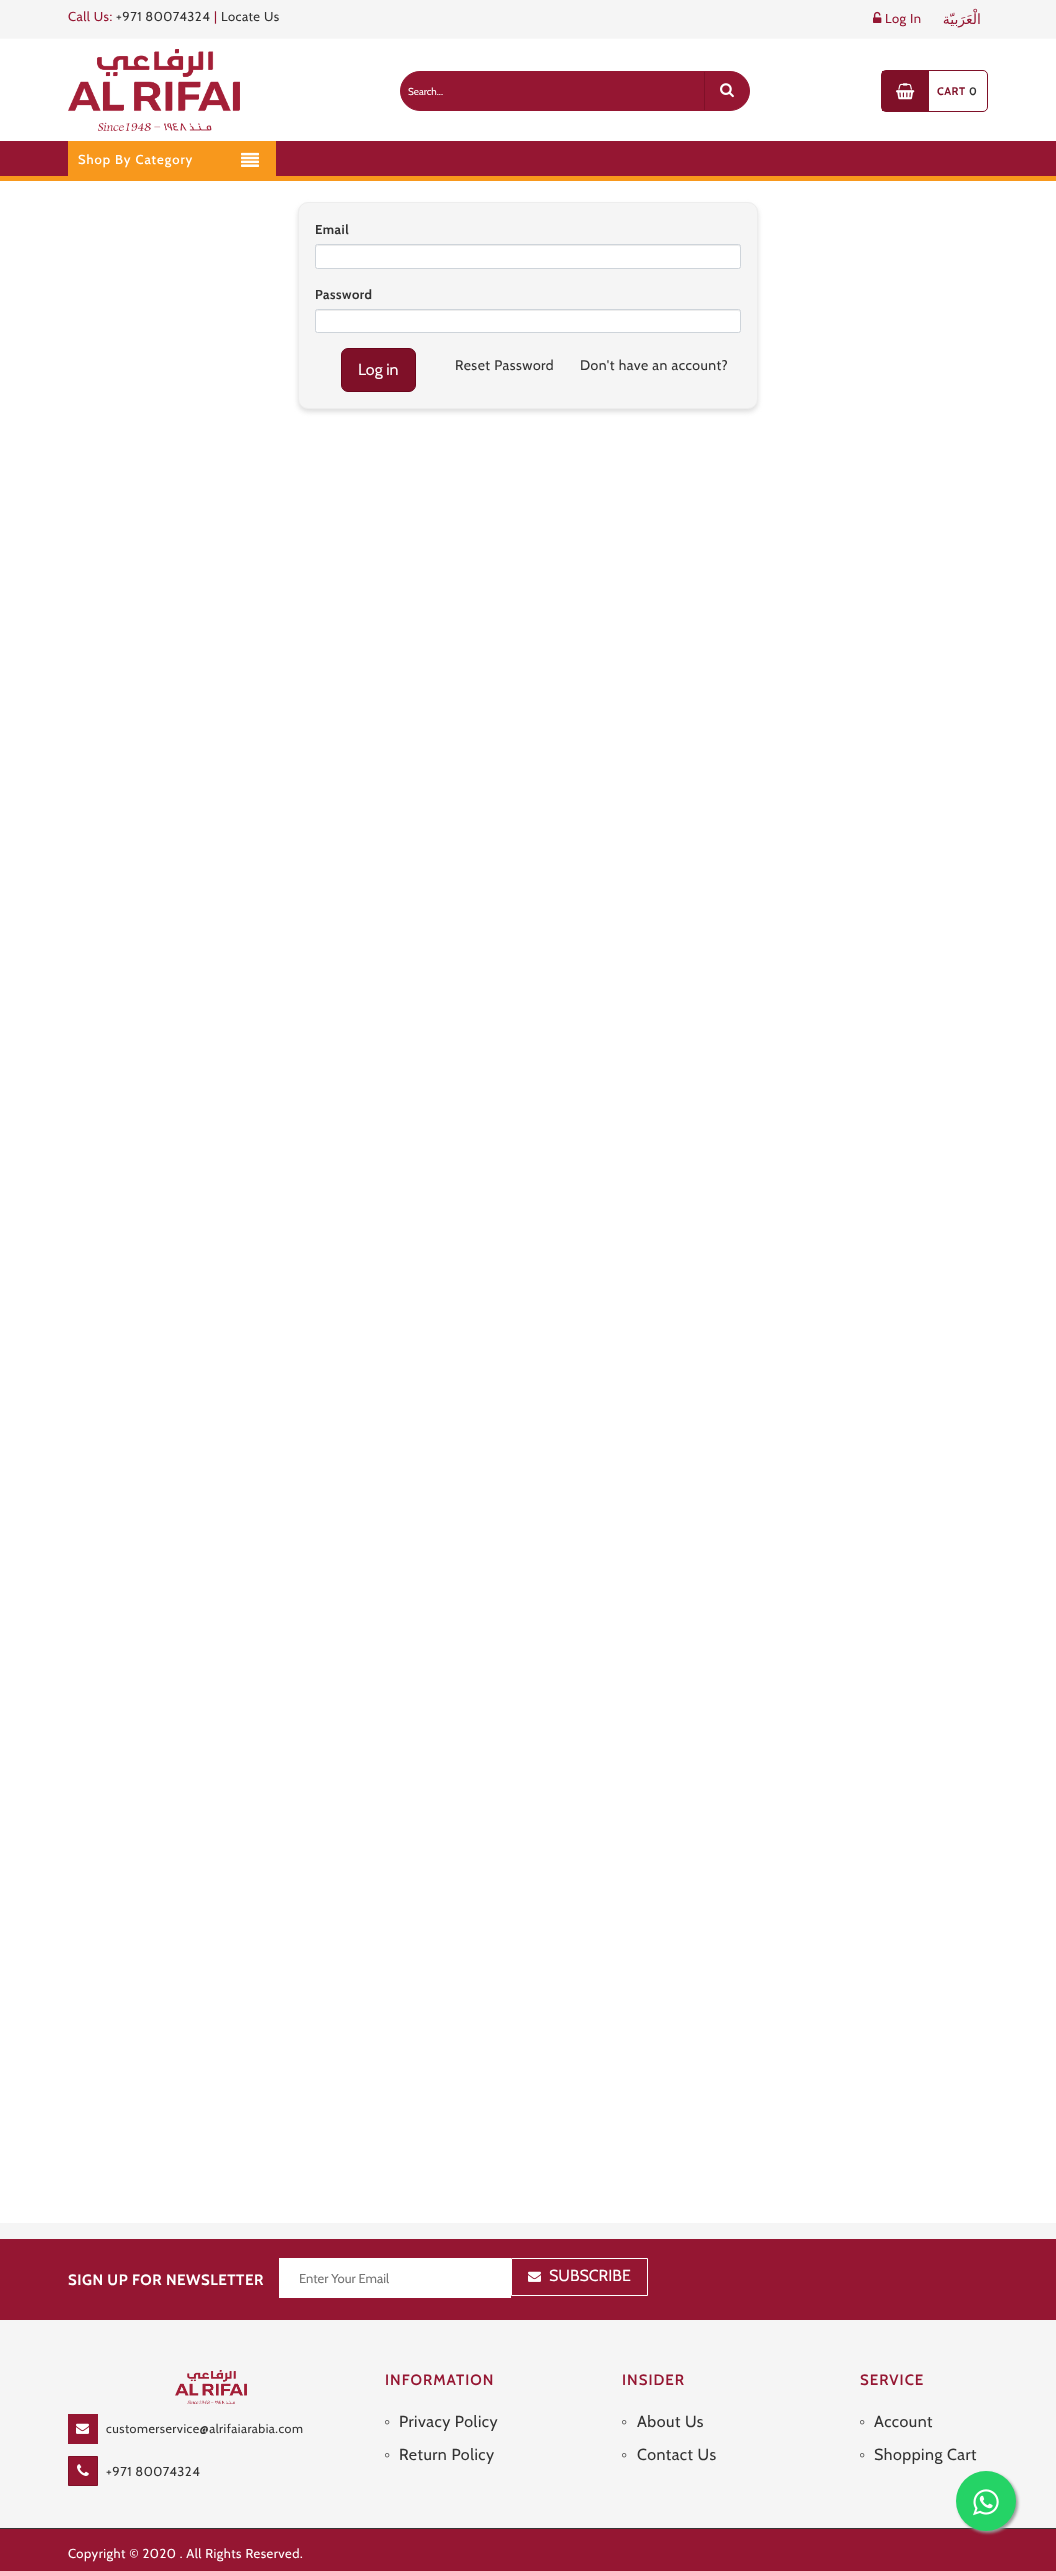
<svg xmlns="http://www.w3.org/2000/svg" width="1056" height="2571">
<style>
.a{font:13px Cabin;letter-spacing:0.5px;fill:#951632}
.b{font:13px Cabin;letter-spacing:0.5px;fill:#333}
.c{font:14px DejaVu Sans;letter-spacing:0.5px;direction:rtl;fill:#951632}
.d{font:10px Cabin;fill:#fff}
.e{font:bold 11px Cabin;letter-spacing:0.5px;fill:#7f1028}
.f{font:bold 11px Cabin;letter-spacing:0.5px;fill:#333}
.g{font:500 13px Cabin;letter-spacing:1px;fill:#fff}
.h{font:bold 13px Cabin;letter-spacing:0.5px;fill:#333}
.i{font:16px Cabin;fill:#fff}
.j{font:14px Cabin;letter-spacing:0.5px;fill:#333}
.k{font:bold 15px Cabin;letter-spacing:0.5px;fill:#fff}
.l{font:13px Cabin;fill:#757575}
.m{font:12.5px Cabin;letter-spacing:0.5px;fill:#333}
.n{font:600 15px Cabin;letter-spacing:1px;fill:#951632}
.o{font:16px Cabin;letter-spacing:0.5px;fill:#333}
.p{font:13px Cabin;letter-spacing:0.5px;fill:#fff}
</style>
<rect width="100%" height="100%" fill="#fff"/>
<path fill="#f5f5f5" d="M0 0h1056v38H0z"/>
<path fill="#f8f8f8" d="M0 38h1056v1H0z"/>
<image href="1.png" x="873" y="11" width="9" height="12"/>
<image href="2.png" x="68" y="49" width="172" height="82"/>
<rect fill="#951632" stroke="#951632" x="400.5" y="71.5" width="349" height="39" rx="19.5"/>
<path fill="#7f1028" d="M704 72h1v38H704z"/>
<image href="3.png" x="720" y="83" width="14" height="15"/>
<rect fill="none" stroke="#7f1028" x="881.5" y="70.5" width="106" height="41" rx="4.5"/>
<path fill="#7f1028" d="M882 71h47v40H882z"/>
<image href="4.png" x="896" y="83" width="19" height="17"/>
<path fill="#f5f5f5" d="M0 2223h1056v305H0z"/>
<path fill="#951632" d="M0 2529h1056v42H0z"/>
<path fill="#333" d="M0 2528h1056v1H0z"/>
<rect fill="#999" filter="blur(1.5px)" x="958" y="2473" width="60" height="60" rx="30"/>
<circle fill="#25d366" cx="986" cy="2501" r="30"/>
<image href="5.png" x="973" y="2489" width="26" height="27"/>
<path fill="#951632" d="M0 141h1056v35H0z"/>
<path fill="#f8981c" d="M0 176h1056v5H0z"/>
<path fill="#f8981c" d="M68 141h208v35H68z"/>
<image href="6.png" x="241" y="152" width="18" height="15"/>
<rect fill="#ddd" filter="blur(2.5px)" x="298" y="205" width="460" height="207" rx="10"/>
<rect fill="#f5f5f5" stroke="#ededed" x="298.5" y="202.5" width="459" height="206" rx="9.5"/>
<rect fill="#fff" x="316" y="245" width="424" height="23" rx="1.5"/>
<path fill="#ececec" d="M318 246h420c1 0 2 1 2 2c0-1 0-3-2-3h-420l-2 1v2c0-1 1-2 2-2z"/>
<rect fill="none" stroke="#ced4da" x="315.5" y="244.5" width="425" height="24" rx="2"/>
<rect fill="#fff" x="316" y="310" width="424" height="22" rx="1.5"/>
<path fill="#00000012" d="M318 311h420l2 1c0-1 0-2-2-2h-420c-2 0-2 1-2 2z"/>
<rect fill="none" stroke="#ced4da" x="315.5" y="309.5" width="425" height="23" rx="2"/>
<rect fill="#7f1028" stroke="#6a051b" x="341.5" y="348.5" width="74" height="43" rx="6.5"/>
<path fill="#951632" d="M0 2239h1056v81H0z"/>
<path fill="#fff" d="M279 2258h232v40H279z"/>
<path fill="none" stroke="#fff" d="M511.5 2258.5h136v37H511.5z"/>
<image href="7.png" x="528" y="2271" width="13" height="11"/>
<image href="8.png" x="175" y="2370" width="72" height="34"/>
<path fill="#951632" d="M68 2414h30v30H68z"/>
<image href="7.png" x="76" y="2423" width="13" height="11"/>
<path fill="#951632" stroke="#7f1028" d="M68.5 2456.5h29v29H68.5z"/>
<image href="9.png" x="77" y="2464" width="12" height="12"/>
<image href="10.png" x="385" y="2420" width="5" height="5"/>
<image href="10.png" x="385" y="2453" width="5" height="5"/>
<image href="10.png" x="622" y="2420" width="5" height="5"/>
<image href="10.png" x="622" y="2453" width="5" height="5"/>
<image href="10.png" x="860" y="2420" width="5" height="5"/>
<image href="10.png" x="860" y="2453" width="5" height="5"/>
<text class="a" x="68" y="21">Call Us:</text>
<text class="b" x="116" y="21">+971 80074324</text>
<text class="a" x="214" y="21">|</text>
<text class="b" x="221" y="21">Locate Us</text>
<text class="a" x="885" y="23">Log In</text>
<text class="c" x="981" y="24">الْعَرَبيّة</text>
<text class="d" x="408" y="95">Search...</text>
<text class="e" x="937" y="95">CART</text>
<text class="f" x="969" y="95">0</text>
<text class="g" x="78" y="164">Shop By Category</text>
<text class="h" x="315" y="234">Email</text>
<text class="h" x="315" y="299">Password</text>
<text class="i" x="358" y="375">Log in</text>
<text class="j" x="455" y="370">Reset Password</text>
<text class="j" x="580" y="370">Don't have an account?</text>
<text class="k" x="68" y="2285">SIGN UP FOR NEWSLETTER</text>
<text class="l" x="299" y="2283">Enter Your Email</text>
<text class="i" x="549" y="2281">SUBSCRIBE</text>
<text class="m" x="106" y="2433">customerservice@alrifaiarabia.com</text>
<text class="b" x="106" y="2476">+971 80074324</text>
<text class="n" x="385" y="2385">INFORMATION</text>
<text class="o" x="399" y="2427">Privacy Policy</text>
<text class="o" x="399" y="2460">Return Policy</text>
<text class="n" x="622" y="2385">INSIDER</text>
<text class="o" x="637" y="2427">About Us</text>
<text class="o" x="637" y="2460">Contact Us</text>
<text class="n" x="860" y="2385">SERVICE</text>
<text class="o" x="874" y="2427">Account</text>
<text class="o" x="874" y="2460">Shopping Cart</text>
<text class="p" x="68" y="2558">Copyright © 2020 . All Rights Reserved.</text>
</svg>
